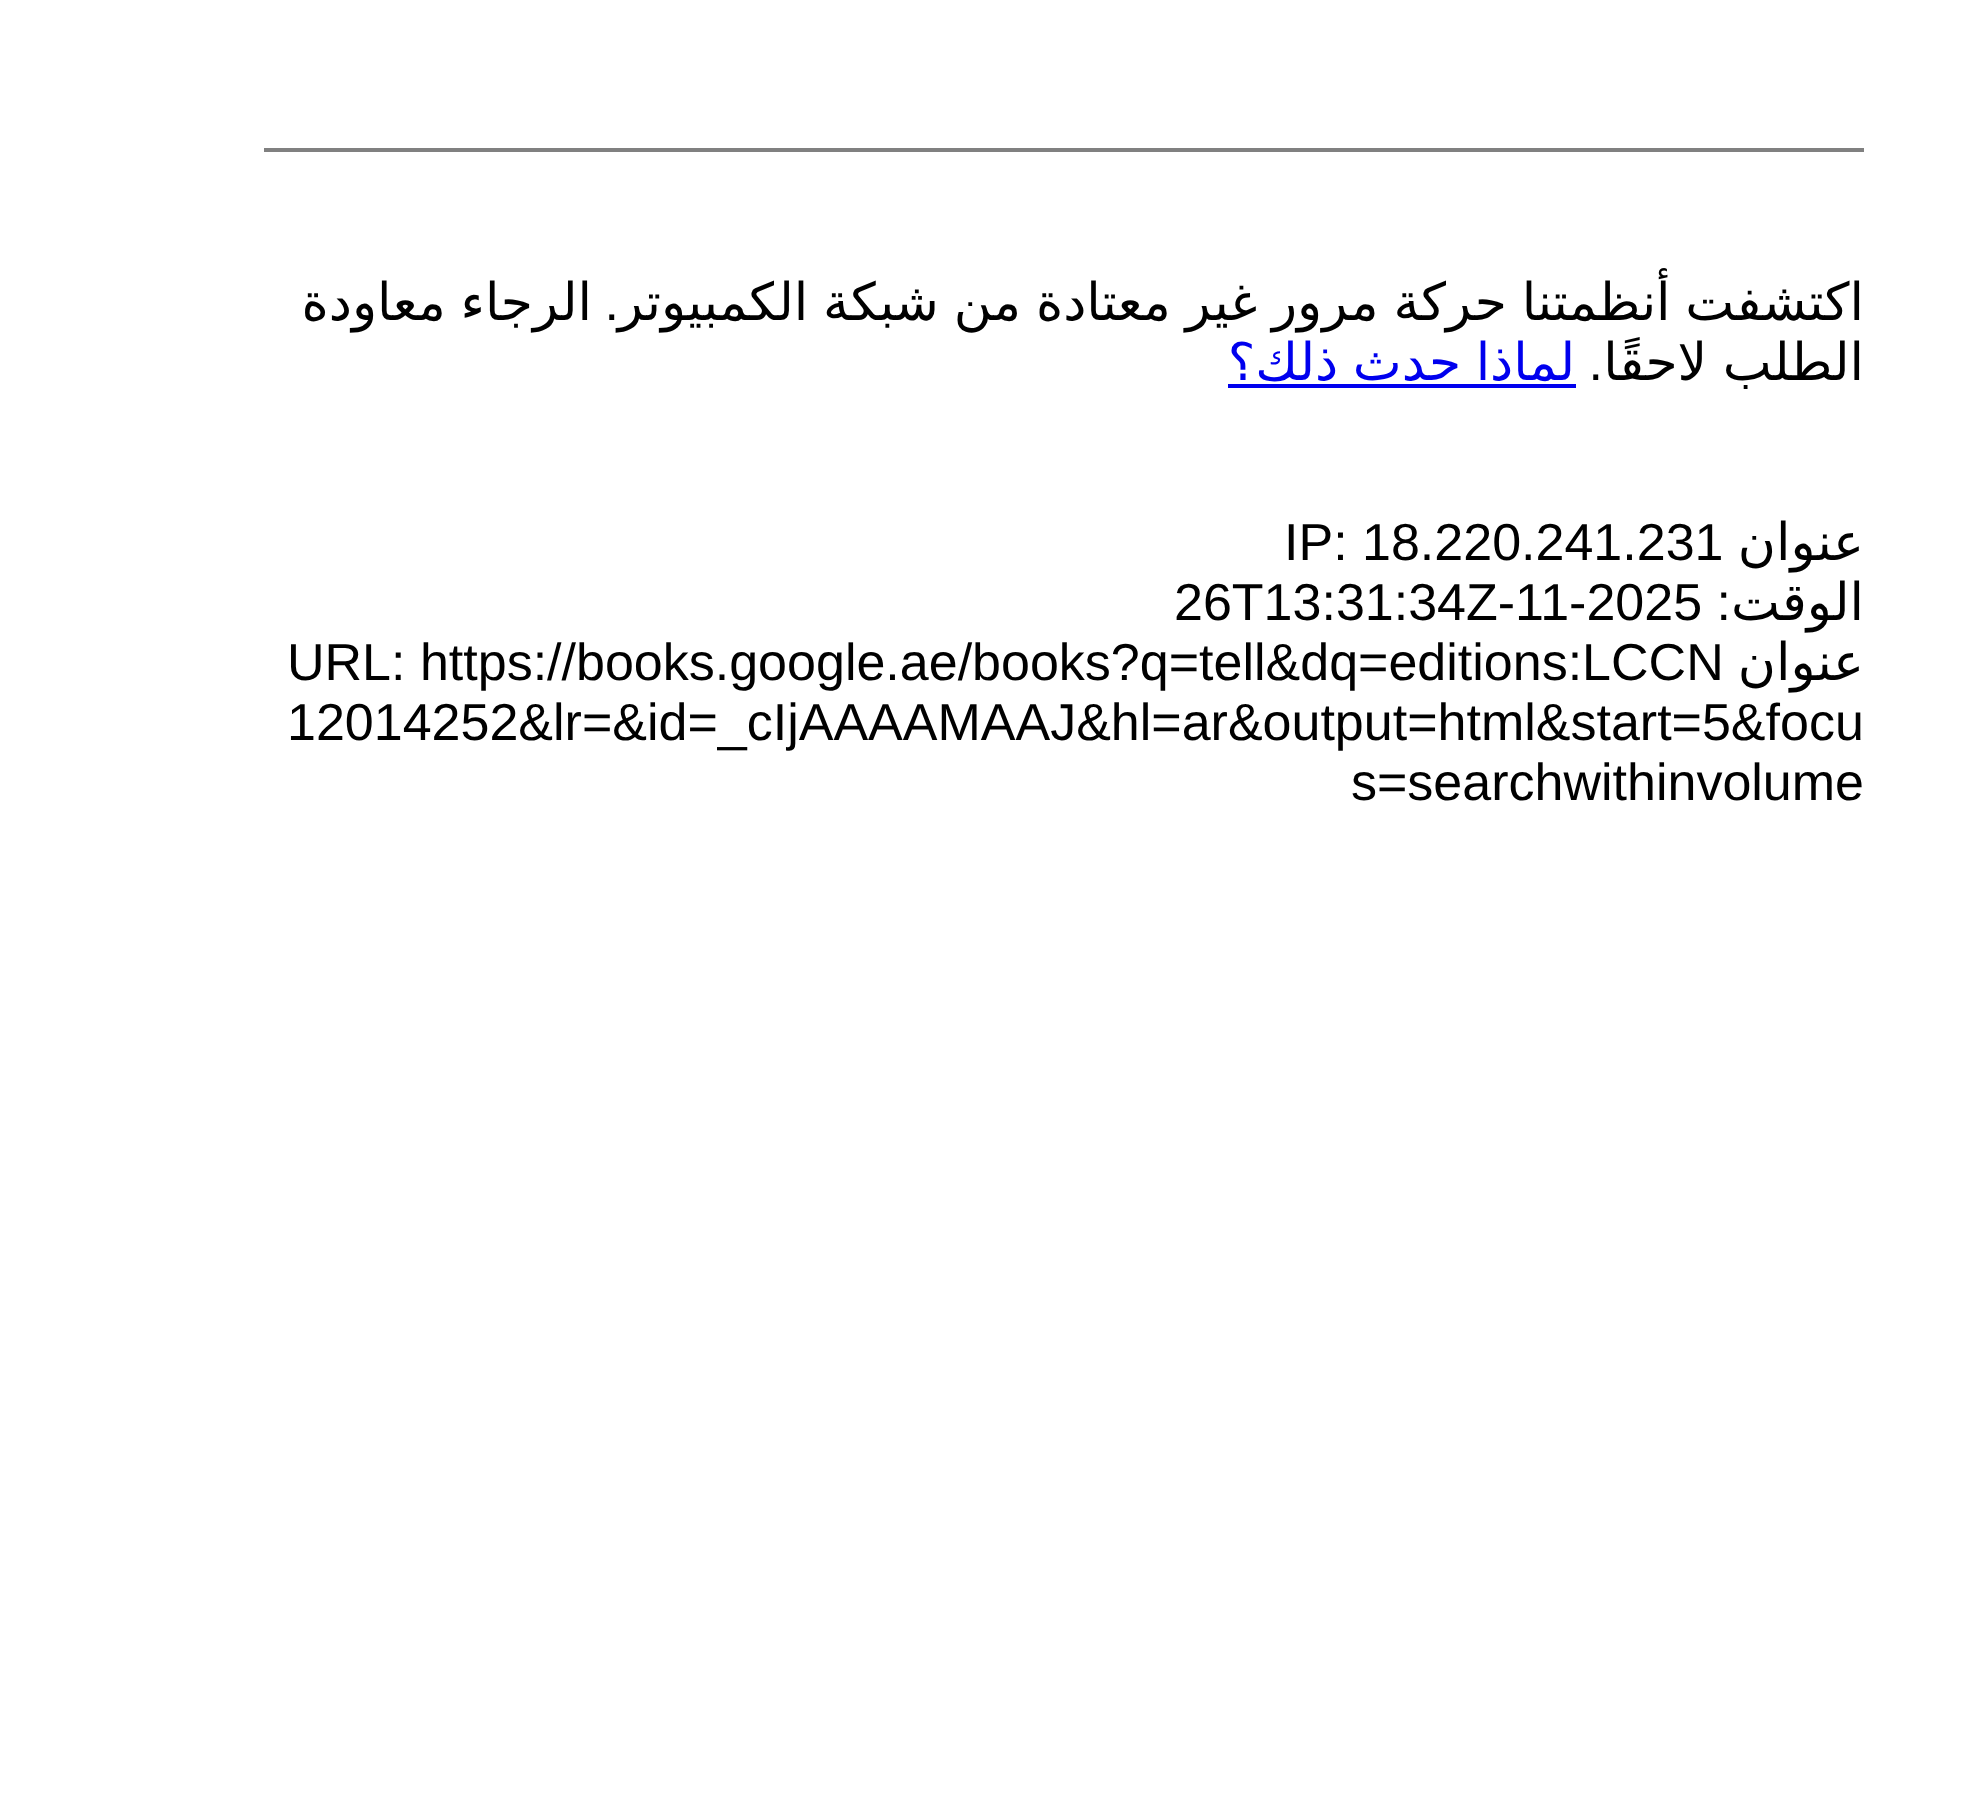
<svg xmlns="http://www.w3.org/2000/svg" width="1973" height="1815">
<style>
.a{font:52px DejaVu Sans;direction:rtl;fill:#000}
.b{font:52px Liberation Sans;direction:rtl;fill:#000}
.c{font:52px DejaVu Sans;direction:rtl;fill:#00e}
.d{font:52px Liberation Sans;fill:#000}
</style>
<rect width="100%" height="100%" fill="#fff"/>
<path fill="#808080" d="M264 148h1600v4H264z"/>
<path fill="#00e" d="M1228 384h348v4H1228z"/>
<text class="a" x="592" y="320" word-spacing="-1.75">الرجاء معاودة</text>
<text class="b" x="619" y="320">.</text>
<text class="a" x="1864" y="320" word-spacing="-1.75">اكتشفت أنظمتنا حركة مرور غير معتادة من شبكة الكمبيوتر</text>
<text class="c" x="1575" y="380" word-spacing="-2">لماذا حدث ذلك؟</text>
<text class="b" x="1603" y="380">.</text>
<text class="a" x="1864" y="380" word-spacing="-1">الطلب لاحقًا</text>
<text class="d" x="1284" y="560">IP: 18.220.241.231</text>
<text class="a" x="1864" y="560">عنوان</text>
<text class="d" x="1174" y="620">26T13:31:34Z-11-2025</text>
<text class="b" x="1731" y="620">:</text>
<text class="a" x="1864" y="620">الوقت</text>
<text class="d" x="287" y="680">URL: https://books.google.ae/books?q=tell&amp;dq=editions:LCCN</text>
<text class="a" x="1864" y="680">عنوان</text>
<text class="d" x="287" y="740">12014252&amp;lr=&amp;id=_cIjAAAAMAAJ&amp;hl=ar&amp;output=html&amp;start=5&amp;focu</text>
<text class="d" x="1351" y="800">s=searchwithinvolume</text>
</svg>
